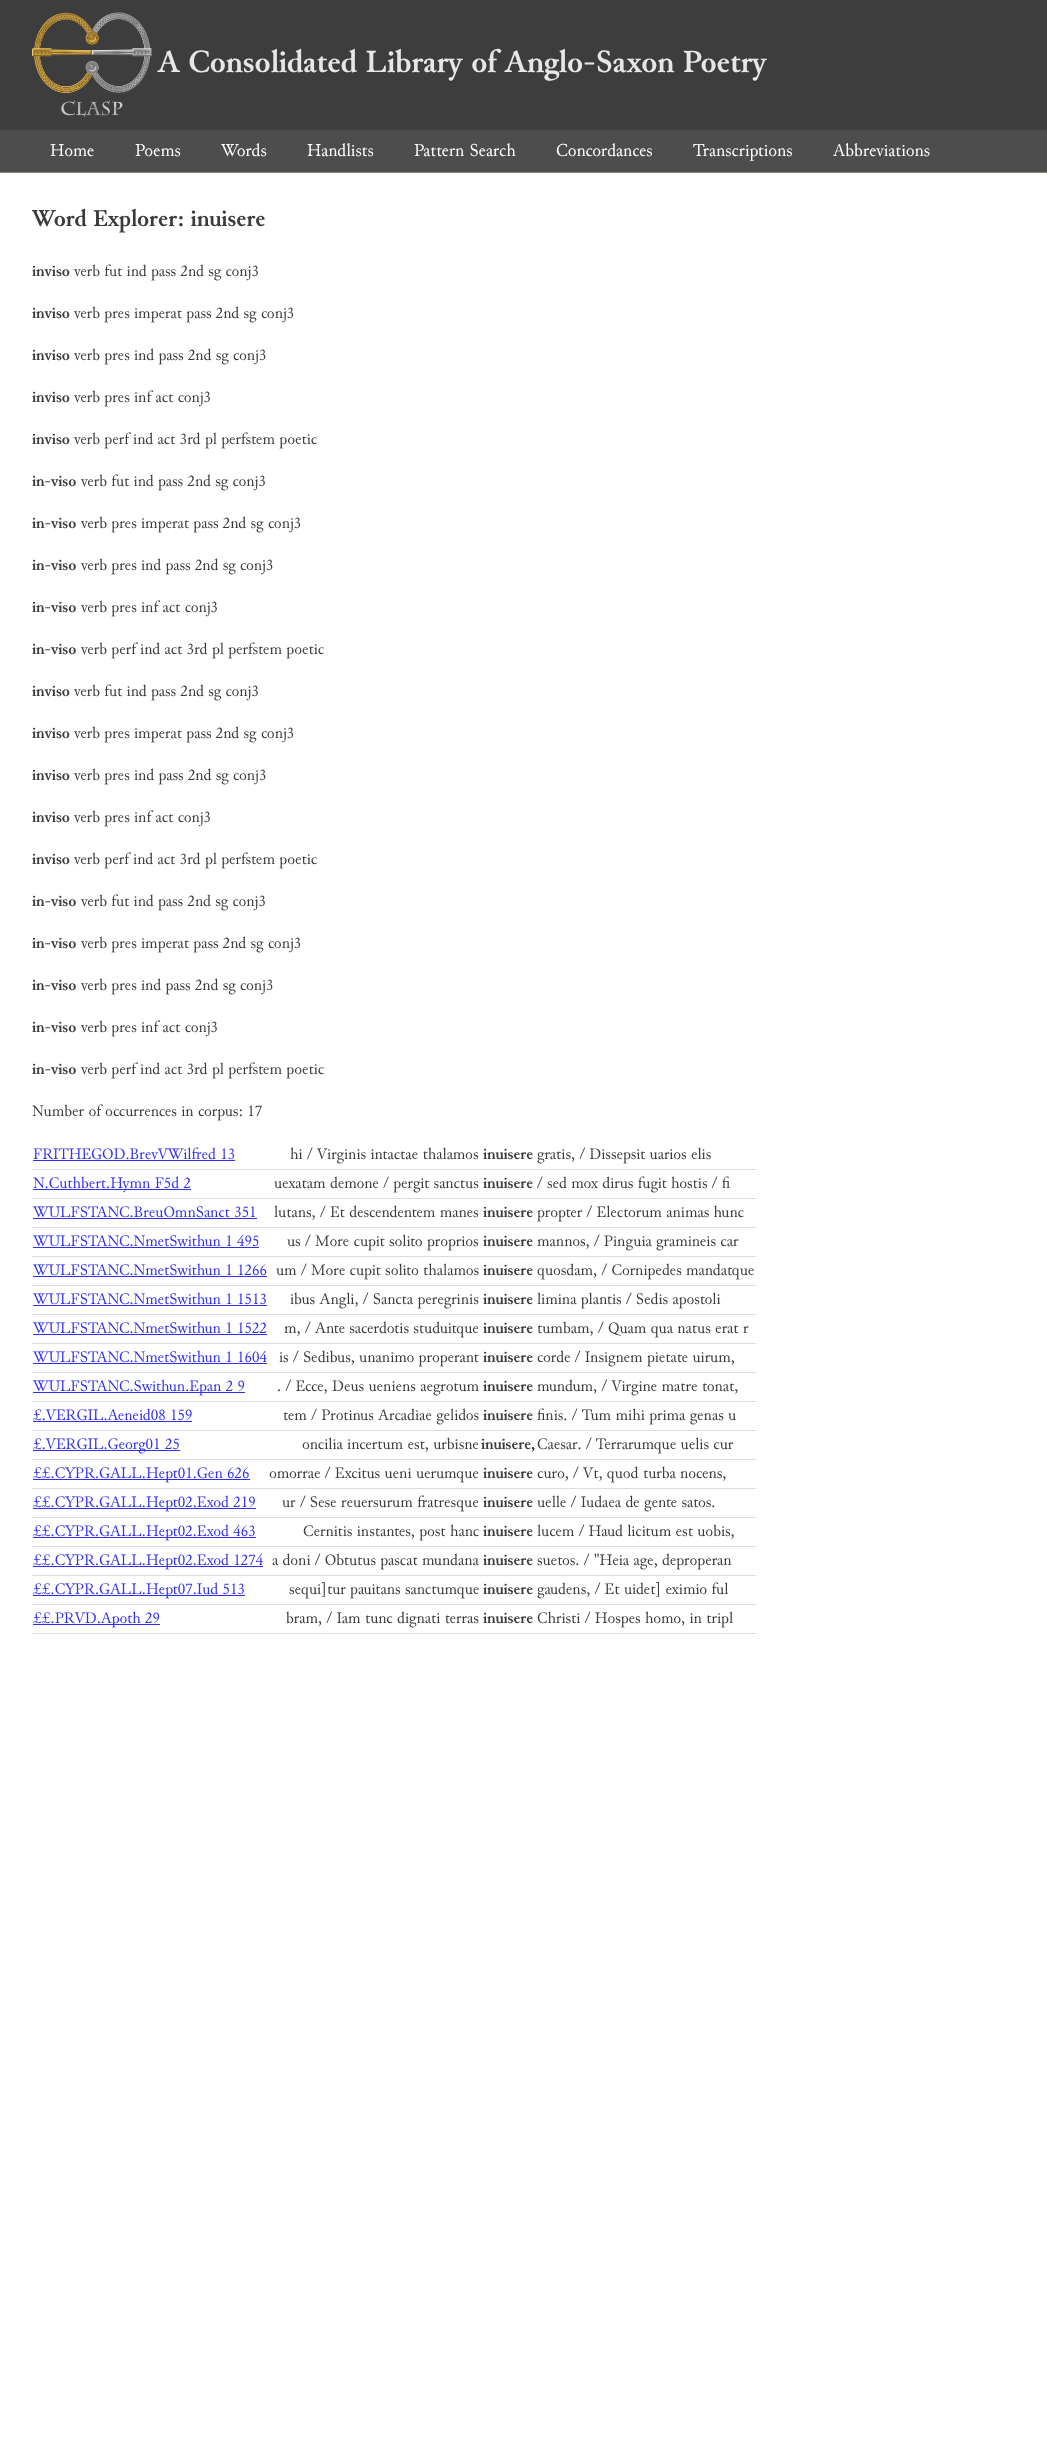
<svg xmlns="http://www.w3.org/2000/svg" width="1047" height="2464">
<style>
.a{font:bold 32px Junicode;fill:#e6e6e6}
.b{font:18px Junicode;fill:#fff}
.c{font:bold 24px Junicode;fill:#3b3b3b}
.d{font:bold 16px Junicode;fill:#3b3b3b}
.e{font:16px Junicode;fill:#3b3b3b}
.f{font:16px Junicode;fill:#3030f0}
</style>
<rect width="100%" height="100%" fill="#fff"/>
<path fill="#3d3d3d" d="M0 0h1047v130H0z"/>
<image href="1.png" x="32" y="12" width="120" height="106"/>
<path fill="#4d4d4d" d="M0 130h1047v42H0z"/>
<path fill="#9c7e68" d="M0 172h1047v1H0z"/>
<path fill="#3030f0" d="M33 1160h202v1H33z"/>
<path fill="#ddd" d="M32 1169h724v1H32z"/>
<path fill="#3030f0" d="M33 1189h158v1H33z"/>
<path fill="#ddd" d="M32 1198h724v1H32z"/>
<path fill="#3030f0" d="M33 1218h224v1H33z"/>
<path fill="#ddd" d="M32 1227h724v1H32z"/>
<path fill="#3030f0" d="M33 1247h226v1H33z"/>
<path fill="#ddd" d="M32 1256h724v1H32z"/>
<path fill="#3030f0" d="M33 1276h234v1H33z"/>
<path fill="#ddd" d="M32 1285h724v1H32z"/>
<path fill="#3030f0" d="M33 1305h234v1H33z"/>
<path fill="#ddd" d="M32 1314h724v1H32z"/>
<path fill="#3030f0" d="M33 1334h234v1H33z"/>
<path fill="#ddd" d="M32 1343h724v1H32z"/>
<path fill="#3030f0" d="M33 1363h234v1H33z"/>
<path fill="#ddd" d="M32 1372h724v1H32z"/>
<path fill="#3030f0" d="M33 1392h212v1H33z"/>
<path fill="#ddd" d="M32 1401h724v1H32z"/>
<path fill="#3030f0" d="M33 1421h159v1H33z"/>
<path fill="#ddd" d="M32 1430h724v1H32z"/>
<path fill="#3030f0" d="M33 1450h147v1H33z"/>
<path fill="#ddd" d="M32 1459h724v1H32z"/>
<path fill="#3030f0" d="M33 1479h217v1H33z"/>
<path fill="#ddd" d="M32 1488h724v1H32z"/>
<path fill="#3030f0" d="M33 1508h223v1H33z"/>
<path fill="#ddd" d="M32 1517h724v1H32z"/>
<path fill="#3030f0" d="M33 1537h223v1H33z"/>
<path fill="#ddd" d="M32 1546h724v1H32z"/>
<path fill="#3030f0" d="M33 1566h230v1H33z"/>
<path fill="#ddd" d="M32 1575h724v1H32z"/>
<path fill="#3030f0" d="M33 1595h212v1H33z"/>
<path fill="#ddd" d="M32 1604h724v1H32z"/>
<path fill="#3030f0" d="M33 1624h127v1H33z"/>
<path fill="#ddd" d="M32 1633h724v1H32z"/>
<text class="a" x="158" y="72">A Consolidated Library of Anglo-Saxon Poetry</text>
<text class="b" x="50" y="156">Home</text>
<text class="b" x="135" y="156">Poems</text>
<text class="b" x="221" y="156">Words</text>
<text class="b" x="307" y="156">Handlists</text>
<text class="b" x="414" y="156">Pattern Search</text>
<text class="b" x="556" y="156">Concordances</text>
<text class="b" x="693" y="156">Transcriptions</text>
<text class="b" x="833" y="156">Abbreviations</text>
<text class="c" x="32" y="226">Word Explorer: inuisere</text>
<text class="d" x="32" y="276">inviso</text>
<text class="e" x="74" y="276">verb fut ind pass 2nd sg conj3</text>
<text class="d" x="32" y="318">inviso</text>
<text class="e" x="74" y="318">verb pres imperat pass 2nd sg conj3</text>
<text class="d" x="32" y="360">inviso</text>
<text class="e" x="74" y="360">verb pres ind pass 2nd sg conj3</text>
<text class="d" x="32" y="402">inviso</text>
<text class="e" x="74" y="402">verb pres inf act conj3</text>
<text class="d" x="32" y="444">inviso</text>
<text class="e" x="74" y="444">verb perf ind act 3rd pl perfstem poetic</text>
<text class="d" x="32" y="486">in-viso</text>
<text class="e" x="81" y="486">verb fut ind pass 2nd sg conj3</text>
<text class="d" x="32" y="528">in-viso</text>
<text class="e" x="81" y="528">verb pres imperat pass 2nd sg conj3</text>
<text class="d" x="32" y="570">in-viso</text>
<text class="e" x="81" y="570">verb pres ind pass 2nd sg conj3</text>
<text class="d" x="32" y="612">in-viso</text>
<text class="e" x="81" y="612">verb pres inf act conj3</text>
<text class="d" x="32" y="654">in-viso</text>
<text class="e" x="81" y="654">verb perf ind act 3rd pl perfstem poetic</text>
<text class="d" x="32" y="696">inviso</text>
<text class="e" x="74" y="696">verb fut ind pass 2nd sg conj3</text>
<text class="d" x="32" y="738">inviso</text>
<text class="e" x="74" y="738">verb pres imperat pass 2nd sg conj3</text>
<text class="d" x="32" y="780">inviso</text>
<text class="e" x="74" y="780">verb pres ind pass 2nd sg conj3</text>
<text class="d" x="32" y="822">inviso</text>
<text class="e" x="74" y="822">verb pres inf act conj3</text>
<text class="d" x="32" y="864">inviso</text>
<text class="e" x="74" y="864">verb perf ind act 3rd pl perfstem poetic</text>
<text class="d" x="32" y="906">in-viso</text>
<text class="e" x="81" y="906">verb fut ind pass 2nd sg conj3</text>
<text class="d" x="32" y="948">in-viso</text>
<text class="e" x="81" y="948">verb pres imperat pass 2nd sg conj3</text>
<text class="d" x="32" y="990">in-viso</text>
<text class="e" x="81" y="990">verb pres ind pass 2nd sg conj3</text>
<text class="d" x="32" y="1032">in-viso</text>
<text class="e" x="81" y="1032">verb pres inf act conj3</text>
<text class="d" x="32" y="1074">in-viso</text>
<text class="e" x="81" y="1074">verb perf ind act 3rd pl perfstem poetic</text>
<text class="e" x="32" y="1116">Number of occurrences in corpus: 17</text>
<text class="f" x="33" y="1159">FRITHEGOD.BrevVWilfred 13</text>
<text class="e" x="290" y="1159">hi / Virginis intactae thalamos</text>
<text class="d" x="483" y="1159">inuisere</text>
<text class="e" x="537" y="1159">gratis, / Dissepsit uarios elis</text>
<text class="f" x="33" y="1188">N.Cuthbert.Hymn F5d 2</text>
<text class="e" x="274" y="1188">uexatam demone / pergit sanctus</text>
<text class="d" x="483" y="1188">inuisere</text>
<text class="e" x="537" y="1188">/ sed mox dirus fugit hostis / fi</text>
<text class="f" x="33" y="1217">WULFSTANC.BreuOmnSanct 351</text>
<text class="e" x="274" y="1217">lutans, / Et descendentem manes</text>
<text class="d" x="483" y="1217">inuisere</text>
<text class="e" x="537" y="1217">propter / Electorum animas hunc</text>
<text class="f" x="33" y="1246">WULFSTANC.NmetSwithun 1 495</text>
<text class="e" x="287" y="1246">us / More cupit solito proprios</text>
<text class="d" x="483" y="1246">inuisere</text>
<text class="e" x="537" y="1246">mannos, / Pinguia gramineis car</text>
<text class="f" x="33" y="1275">WULFSTANC.NmetSwithun 1 1266</text>
<text class="e" x="276" y="1275">um / More cupit solito thalamos</text>
<text class="d" x="483" y="1275">inuisere</text>
<text class="e" x="537" y="1275">quosdam, / Cornipedes mandatque</text>
<text class="f" x="33" y="1304">WULFSTANC.NmetSwithun 1 1513</text>
<text class="e" x="290" y="1304">ibus Angli, / Sancta peregrinis</text>
<text class="d" x="483" y="1304">inuisere</text>
<text class="e" x="537" y="1304">limina plantis / Sedis apostoli</text>
<text class="f" x="33" y="1333">WULFSTANC.NmetSwithun 1 1522</text>
<text class="e" x="284" y="1333">m, / Ante sacerdotis studuitque</text>
<text class="d" x="483" y="1333">inuisere</text>
<text class="e" x="537" y="1333">tumbam, / Quam qua natus erat r</text>
<text class="f" x="33" y="1362">WULFSTANC.NmetSwithun 1 1604</text>
<text class="e" x="279" y="1362">is / Sedibus, unanimo properant</text>
<text class="d" x="483" y="1362">inuisere</text>
<text class="e" x="537" y="1362">corde / Insignem pietate uirum,</text>
<text class="f" x="33" y="1391">WULFSTANC.Swithun.Epan 2 9</text>
<text class="e" x="277" y="1391">. / Ecce, Deus ueniens aegrotum</text>
<text class="d" x="483" y="1391">inuisere</text>
<text class="e" x="537" y="1391">mundum, / Virgine matre tonat,</text>
<text class="f" x="33" y="1420">£.VERGIL.Aeneid08 159</text>
<text class="e" x="283" y="1420">tem / Protinus Arcadiae gelidos</text>
<text class="d" x="483" y="1420">inuisere</text>
<text class="e" x="537" y="1420">finis. / Tum mihi prima genas u</text>
<text class="f" x="33" y="1449">£.VERGIL.Georg01 25</text>
<text class="e" x="302" y="1449">oncilia incertum est, urbisne</text>
<text class="d" x="481" y="1449">inuisere,</text>
<text class="e" x="537" y="1449">Caesar. / Terrarumque uelis cur</text>
<text class="f" x="33" y="1478">££.CYPR.GALL.Hept01.Gen 626</text>
<text class="e" x="269" y="1478">omorrae / Excitus ueni uerumque</text>
<text class="d" x="483" y="1478">inuisere</text>
<text class="e" x="537" y="1478">curo, / Vt, quod turba nocens,</text>
<text class="f" x="33" y="1507">££.CYPR.GALL.Hept02.Exod 219</text>
<text class="e" x="282" y="1507">ur / Sese reuersurum fratresque</text>
<text class="d" x="483" y="1507">inuisere</text>
<text class="e" x="537" y="1507">uelle / Iudaea de gente satos.</text>
<text class="f" x="33" y="1536">££.CYPR.GALL.Hept02.Exod 463</text>
<text class="e" x="303" y="1536">Cernitis instantes, post hanc</text>
<text class="d" x="483" y="1536">inuisere</text>
<text class="e" x="537" y="1536">lucem / Haud licitum est uobis,</text>
<text class="f" x="33" y="1565">££.CYPR.GALL.Hept02.Exod 1274</text>
<text class="e" x="272" y="1565">a doni / Obtutus pascat mundana</text>
<text class="d" x="483" y="1565">inuisere</text>
<text class="e" x="537" y="1565">suetos. / "Heia age, deproperan</text>
<text class="f" x="33" y="1594">££.CYPR.GALL.Hept07.Iud 513</text>
<text class="e" x="289" y="1594">sequi]tur pauitans sanctumque</text>
<text class="d" x="483" y="1594">inuisere</text>
<text class="e" x="537" y="1594">gaudens, / Et uidet] eximio ful</text>
<text class="f" x="33" y="1623">££.PRVD.Apoth 29</text>
<text class="e" x="286" y="1623">bram, / Iam tunc dignati terras</text>
<text class="d" x="483" y="1623">inuisere</text>
<text class="e" x="537" y="1623">Christi / Hospes homo, in tripl</text>
</svg>
